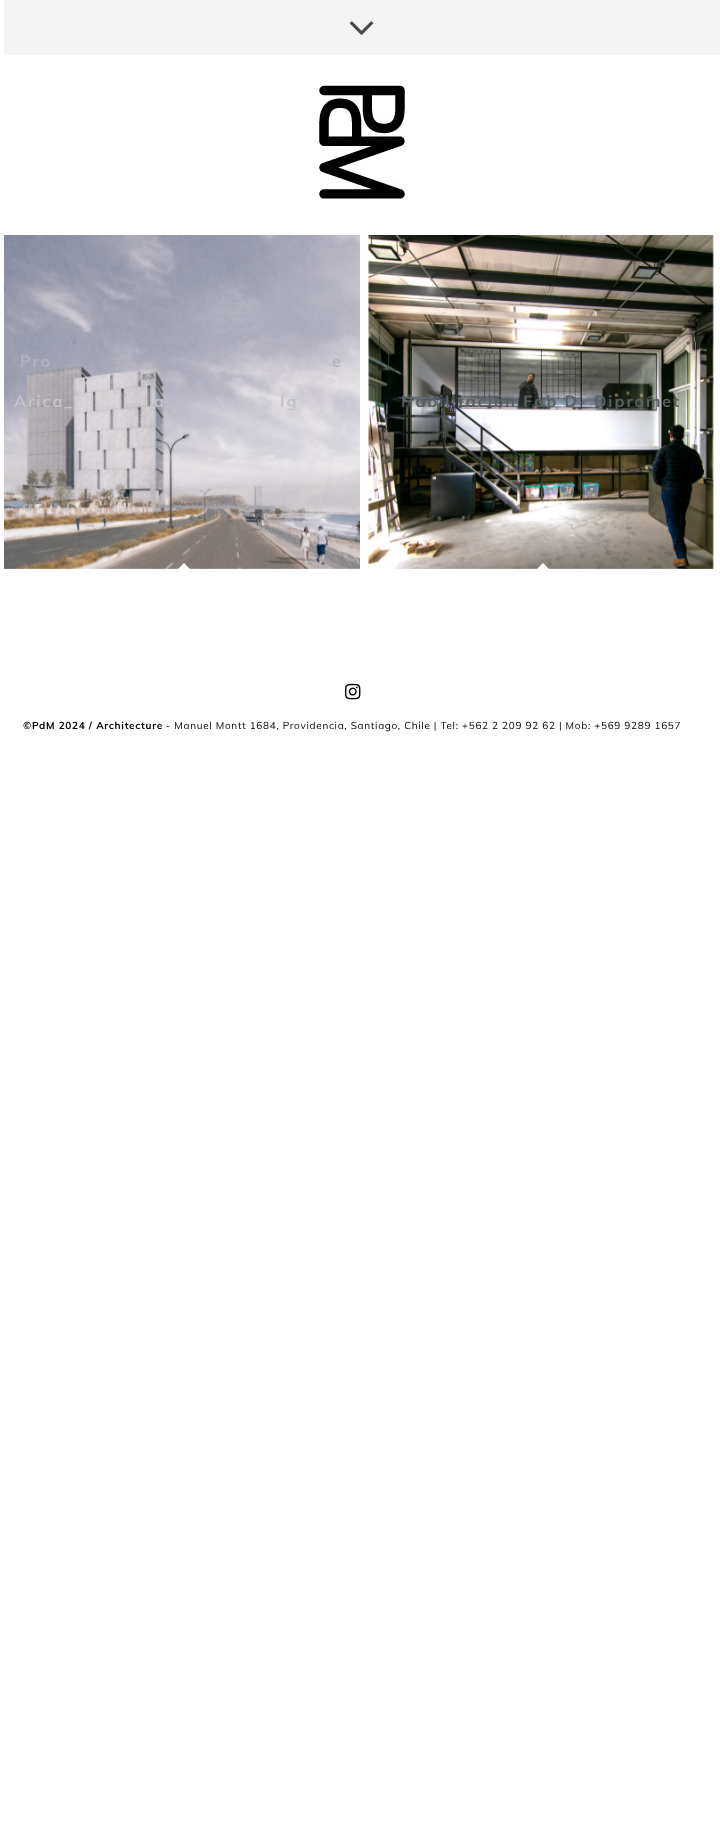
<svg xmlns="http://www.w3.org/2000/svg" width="720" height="1838">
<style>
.a{font:bold 16px Muli;letter-spacing:2px;fill:#b3b3c0}
.b{font:bold 16px Muli;letter-spacing:2px;fill:#c5c2ca}
.c{font:bold 16px Muli;letter-spacing:2px;fill:#5a6060}
.d{font:bold 10px Muli;letter-spacing:0.7px;fill:#000}
.e{font:10px Muli;letter-spacing:0.7px;fill:#000}
</style>
<rect width="100%" height="100%" fill="#fff"/>
<path fill="#f5f5f5" d="M4 0h716v55H4z"/>
<image href="1.png" x="349" y="21" width="25" height="14"/>
<image href="2.png" x="319" y="85" width="86" height="114"/>
<image href="3.png" x="4" y="235" width="356" height="334"/>
<path fill="#fff" d="M190 569h-12l6-6z"/>
<image href="4.png" x="368" y="235" width="346" height="334"/>
<path fill="#fff" d="M549 569h-12l6-6z"/>
<image href="5.png" x="345" y="683" width="16" height="17"/>
<text class="a" x="20" y="367">Pro</text>
<text class="a" x="332" y="367">e</text>
<text class="b" x="14" y="407">Arica_</text>
<text class="b" x="154" y="407">a</text>
<text class="b" x="280" y="407">Ig</text>
<text class="c" x="401" y="407">Habilitación Fab D- Dipromet</text>
<text class="d" x="23" y="729">©PdM 2024 / Architecture</text>
<text class="e" x="166" y="729">- Manuel Montt 1684, Providencia, Santiago, Chile | Tel: +562 2 209 92 62 | Mob: +569 9289 1657</text>
</svg>
